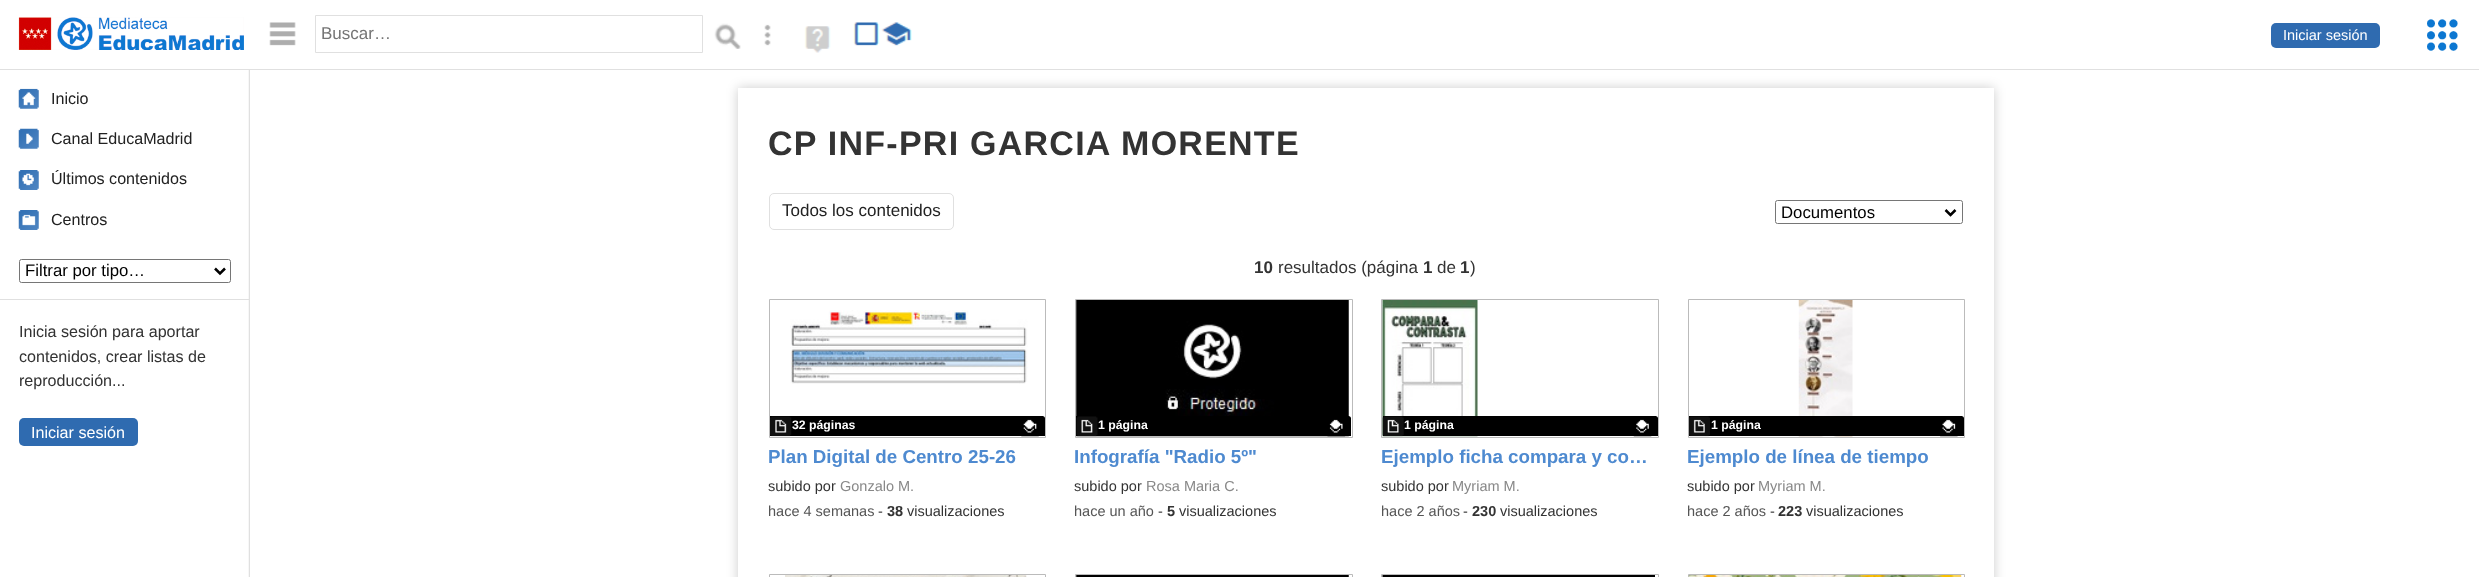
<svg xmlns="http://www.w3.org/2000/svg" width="2479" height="577">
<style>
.a{font:17px Liberation Sans;fill:#757575}
.b{font:14.5px Liberation Sans;fill:#fff}
.c{font:16.1px Liberation Sans;fill:#222}
.d{font:16.75px Liberation Sans;fill:#000}
.e{font:16.1px Liberation Sans;fill:#333}
.f{font:16.1px Liberation Sans;fill:#fff}
.g{font:bold 34px Liberation Sans;letter-spacing:1.25px;fill:#333}
.h{font:17px Liberation Sans;fill:#222}
.i{font:bold 17px Liberation Sans;fill:#333}
.j{font:17px Liberation Sans;fill:#333}
.k{font:bold 12.25px Liberation Sans;fill:#fff}
.l{font:14.5px Liberation Sans;fill:#333}
.m{font:14.5px Liberation Sans;fill:#888}
.n{font:14.5px Liberation Sans;fill:#555}
.o{font:bold 14.5px Liberation Sans;fill:#333}
.p{font:bold 18.75px Liberation Sans;fill:#4e8ad0}
</style>
<rect width="100%" height="100%" fill="#fff"/>
<image href="1.png" x="248" y="70" width="2" height="507"/>
<path fill="#00000033" filter="blur(6px)" d="M738 88h1256v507H738z"/>
<path fill="#e0e0e0" d="M0 69h2479v1H0z"/>
<image href="2.png" x="18" y="17" width="226" height="33"/>
<image href="3.png" x="269" y="22" width="27" height="24"/>
<path fill="none" stroke="#e0e0e0" d="M315.5 15.5h387v37H315.5z"/>
<image href="4.png" x="714" y="23" width="27" height="26"/>
<image href="5.png" x="764" y="24" width="7" height="22"/>
<image href="6.png" x="804" y="26" width="27" height="27"/>
<image href="7.png" x="853" y="22" width="59" height="24"/>
<rect fill="#2f6bb0" x="2271" y="23" width="109" height="25" rx="5"/>
<image href="8.png" x="18" y="88" width="21" height="21"/>
<image href="9.png" x="18" y="128" width="21" height="21"/>
<image href="10.png" x="18" y="170" width="21" height="20"/>
<image href="11.png" x="18" y="210" width="21" height="20"/>
<rect fill="none" stroke="#767676" x="19.5" y="259.5" width="211" height="23" rx="2"/>
<path fill="none" stroke="#000" stroke-width="2.5" d="M215 268.5l5 5l5-5"/>
<path fill="#e0e0e0" d="M0 299h249v1H0z"/>
<rect fill="#2f6bb0" x="19" y="418" width="119" height="28" rx="5"/>
<path fill="#fff" d="M738 88h1256v489H738z"/>
<rect fill="none" stroke="#e0e0e0" x="769.5" y="193.5" width="184" height="36" rx="4.5"/>
<rect fill="none" stroke="#767676" x="1775.5" y="200.5" width="187" height="23" rx="2"/>
<path fill="none" stroke="#000" stroke-width="2.5" d="M1945.5 210l5 5l5-5"/>
<path fill="none" stroke="#bbb" d="M769.5 299.5h276v138H769.5z"/>
<path fill="#000" d="M770 416h272.5c1.5 0 2.5 1 2.5 2.5v17.5h-275z"/>
<image href="12.png" x="770" y="416" width="22" height="21"/>
<image href="13.png" x="790" y="310" width="238" height="74"/>
<image href="14.png" x="1021" y="419" width="18" height="18"/>
<path fill="none" stroke="#bbb" d="M1075.5 299.5h277v138H1075.5z"/>
<image href="16.png" x="1076" y="300" width="273" height="137"/>
<path fill="#000" d="M1076 416h272.5c1.5 0 2.5 1 2.5 2.5v17.5h-275z"/>
<image href="15.png" x="1076" y="416" width="22" height="21"/>
<image href="17.png" x="1327" y="419" width="19" height="18"/>
<path fill="none" stroke="#bbb" d="M1381.5 299.5h277v138H1381.5z"/>
<image href="19.png" x="1382" y="300" width="96" height="137"/>
<path fill="#000" d="M1383 416h272.5c1.5 0 2.5 1 2.5 2.5v17.5h-275z"/>
<image href="18.png" x="1382" y="416" width="22" height="21"/>
<image href="20.png" x="1633" y="419" width="19" height="18"/>
<path fill="none" stroke="#bbb" d="M1688.5 299.5h276v138H1688.5z"/>
<image href="22.png" x="1798" y="300" width="55" height="137"/>
<path fill="#000" d="M1689 416h272.5c1.5 0 2.5 1 2.5 2.5v17.5h-275z"/>
<image href="21.png" x="1688" y="416" width="22" height="21"/>
<image href="23.png" x="1940" y="419" width="18" height="18"/>
<path fill="none" stroke="#bbb" d="M769.5 574.5h276v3H769.5z"/>
<image href="24.png" x="785" y="575" width="242" height="2"/>
<path fill="none" stroke="#bbb" d="M1075.5 574.5h277v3H1075.5z"/>
<image href="25.png" x="1076" y="575" width="273" height="2"/>
<path fill="none" stroke="#bbb" d="M1381.5 574.5h277v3H1381.5z"/>
<image href="26.png" x="1382" y="575" width="273" height="2"/>
<path fill="none" stroke="#bbb" d="M1688.5 574.5h276v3H1688.5z"/>
<image href="27.png" x="1688" y="575" width="274" height="2"/>
<image href="28.png" x="2427" y="19" width="31" height="32"/>
<text class="a" x="321" y="39">Buscar…</text>
<text class="b" x="2283" y="40">Iniciar sesión</text>
<text class="c" x="51" y="104">Inicio</text>
<text class="c" x="51" y="144">Canal EducaMadrid</text>
<text class="c" x="51" y="184">Últimos contenidos</text>
<text class="c" x="51" y="225">Centros</text>
<text class="d" x="25" y="276">Filtrar por tipo…</text>
<text class="e" x="19" y="337">Inicia sesión para aportar</text>
<text class="e" x="19" y="362">contenidos, crear listas de</text>
<text class="e" x="19" y="386">reproducción...</text>
<text class="f" x="31" y="438">Iniciar sesión</text>
<text class="g" x="768" y="155">CP INF-PRI GARCIA MORENTE</text>
<text class="h" x="782" y="216">Todos los contenidos</text>
<text class="d" x="1781" y="218">Documentos</text>
<text class="i" x="1254" y="273">10</text>
<text class="j" x="1278" y="273">resultados (página</text>
<text class="i" x="1423" y="273">1</text>
<text class="j" x="1437" y="273">de</text>
<text class="i" x="1460" y="273">1</text>
<text class="j" x="1470" y="273">)</text>
<text class="k" x="792" y="429">32 páginas</text>
<text class="l" x="768" y="491">subido por</text>
<text class="m" x="840" y="491">Gonzalo M.</text>
<text class="n" x="768" y="516">hace 4 semanas</text>
<text class="l" x="878" y="516">-</text>
<text class="o" x="887" y="516">38</text>
<text class="l" x="907" y="516">visualizaciones</text>
<text class="p" x="768" y="463">Plan Digital de Centro 25-26</text>
<text class="k" x="1098" y="429">1 página</text>
<text class="l" x="1074" y="491">subido por</text>
<text class="m" x="1146" y="491">Rosa Maria C.</text>
<text class="n" x="1074" y="516">hace un año</text>
<text class="l" x="1158" y="516">-</text>
<text class="o" x="1167" y="516">5</text>
<text class="l" x="1179" y="516">visualizaciones</text>
<text class="p" x="1074" y="463">Infografía "Radio 5º"</text>
<text class="k" x="1404" y="429">1 página</text>
<text class="l" x="1381" y="491">subido por</text>
<text class="m" x="1452" y="491">Myriam M.</text>
<text class="n" x="1381" y="516">hace 2 años</text>
<text class="l" x="1463" y="516">-</text>
<text class="o" x="1472" y="516">230</text>
<text class="l" x="1500" y="516">visualizaciones</text>
<text class="p" x="1381" y="463">Ejemplo ficha compara y co…</text>
<text class="k" x="1711" y="429">1 página</text>
<text class="l" x="1687" y="491">subido por</text>
<text class="m" x="1758" y="491">Myriam M.</text>
<text class="n" x="1687" y="516">hace 2 años</text>
<text class="l" x="1770" y="516">-</text>
<text class="o" x="1778" y="516">223</text>
<text class="l" x="1806" y="516">visualizaciones</text>
<text class="p" x="1687" y="463">Ejemplo de línea de tiempo</text>
</svg>
